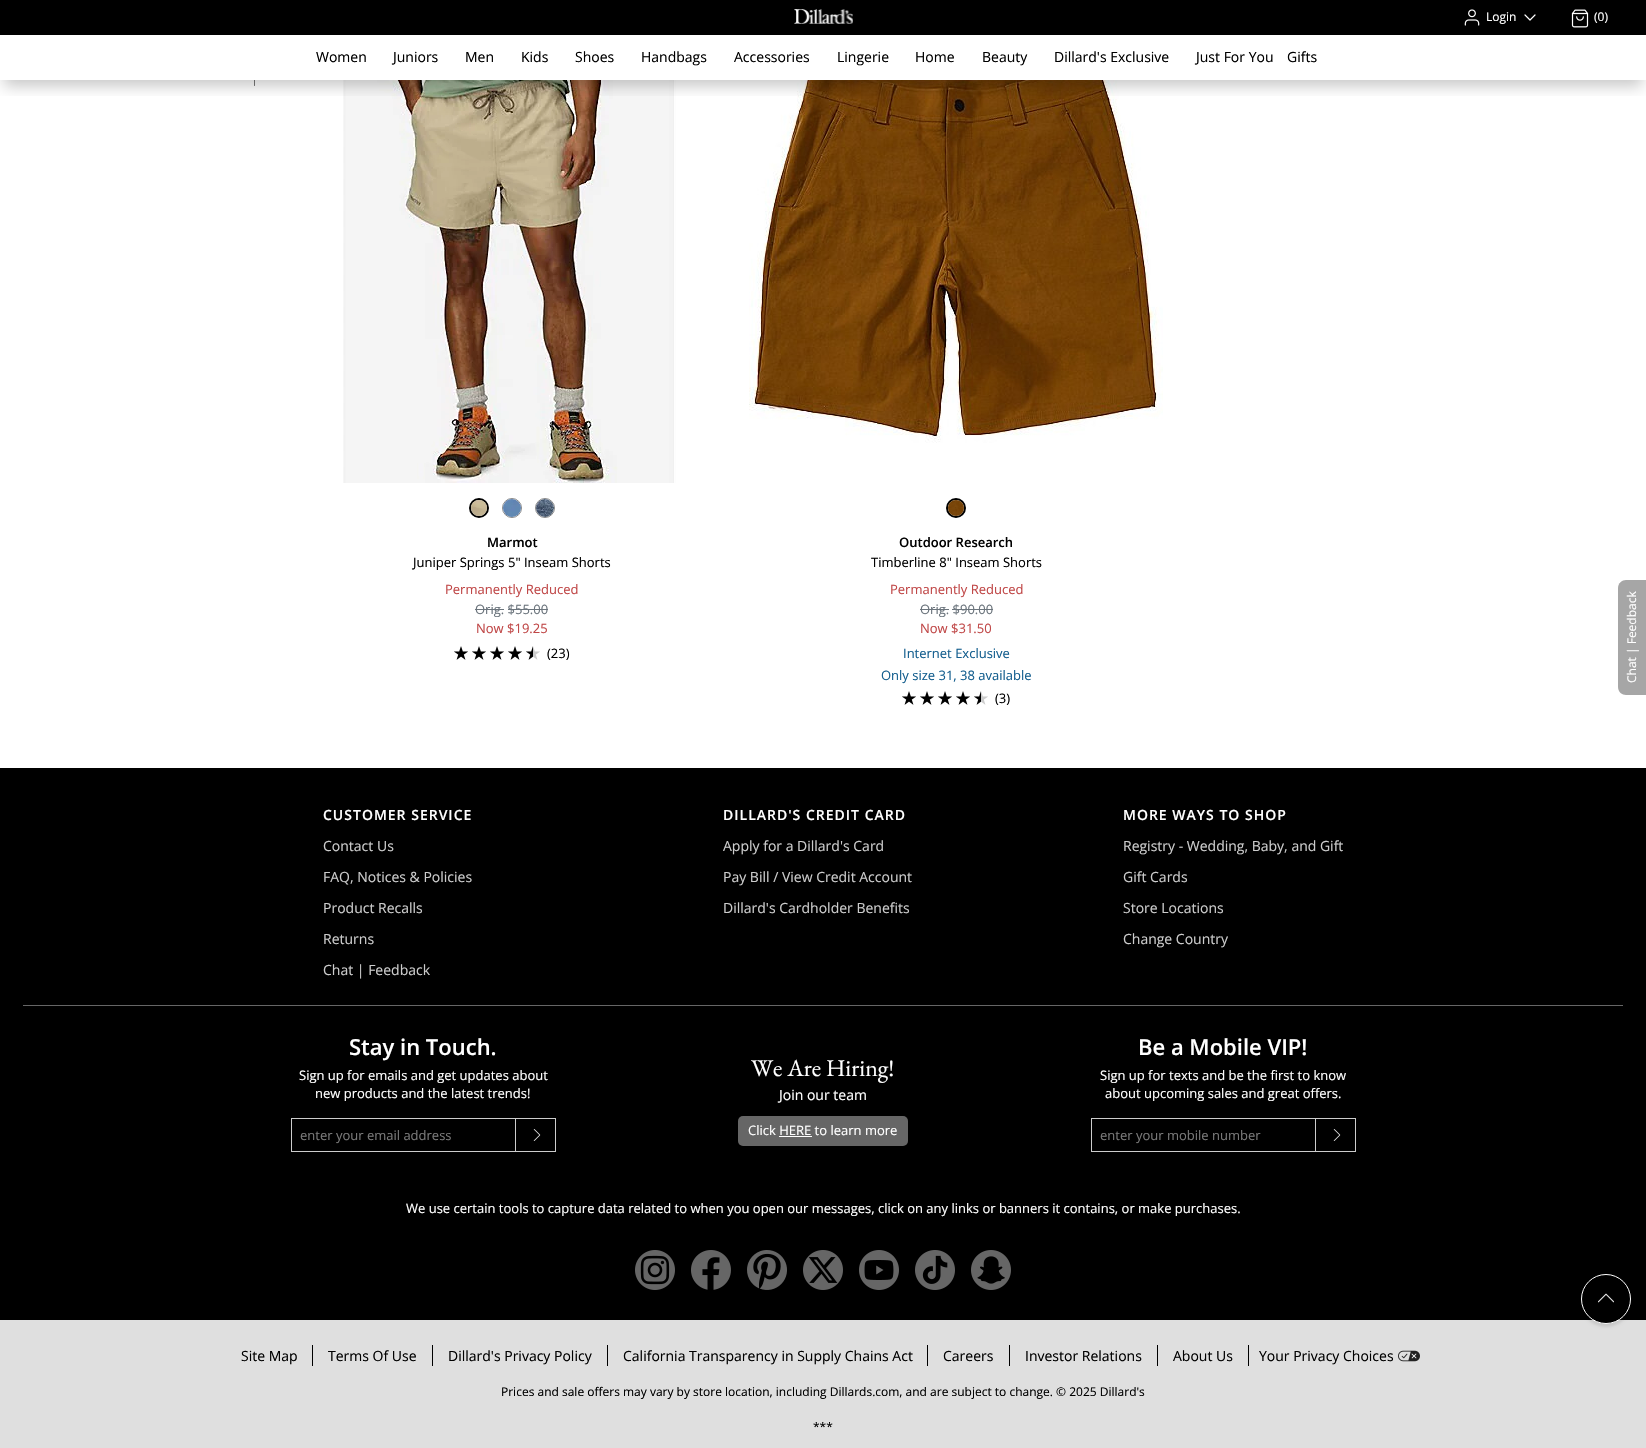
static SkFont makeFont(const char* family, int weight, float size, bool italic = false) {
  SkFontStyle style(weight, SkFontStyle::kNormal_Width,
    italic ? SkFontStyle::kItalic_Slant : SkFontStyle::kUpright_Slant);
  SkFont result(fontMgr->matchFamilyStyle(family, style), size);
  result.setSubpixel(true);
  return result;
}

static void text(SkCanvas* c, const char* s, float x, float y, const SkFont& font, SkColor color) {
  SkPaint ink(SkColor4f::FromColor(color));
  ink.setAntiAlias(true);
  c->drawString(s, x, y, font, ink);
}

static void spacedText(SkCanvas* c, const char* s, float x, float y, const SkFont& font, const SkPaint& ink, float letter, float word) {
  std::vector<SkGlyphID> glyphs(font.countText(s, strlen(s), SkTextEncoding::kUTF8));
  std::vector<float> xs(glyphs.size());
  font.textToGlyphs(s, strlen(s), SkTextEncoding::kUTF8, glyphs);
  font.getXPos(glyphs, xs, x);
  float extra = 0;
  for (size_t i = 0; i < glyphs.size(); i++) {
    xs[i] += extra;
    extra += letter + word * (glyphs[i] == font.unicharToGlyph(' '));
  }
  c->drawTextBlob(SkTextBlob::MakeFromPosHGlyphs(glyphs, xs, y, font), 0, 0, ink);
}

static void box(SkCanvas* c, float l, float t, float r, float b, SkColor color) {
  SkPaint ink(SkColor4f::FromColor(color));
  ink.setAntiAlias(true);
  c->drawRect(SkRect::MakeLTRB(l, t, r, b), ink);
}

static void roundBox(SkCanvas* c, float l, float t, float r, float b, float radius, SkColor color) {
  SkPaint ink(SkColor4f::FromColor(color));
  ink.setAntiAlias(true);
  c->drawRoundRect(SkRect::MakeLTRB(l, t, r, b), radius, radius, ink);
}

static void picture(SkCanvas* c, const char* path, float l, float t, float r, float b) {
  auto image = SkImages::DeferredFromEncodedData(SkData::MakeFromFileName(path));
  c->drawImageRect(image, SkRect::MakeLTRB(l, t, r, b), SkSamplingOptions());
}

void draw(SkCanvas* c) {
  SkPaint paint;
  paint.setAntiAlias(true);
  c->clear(0xffffffff);
  picture(c, "img_04.png", 254, 80, 255, 86);
  picture(c, "img_05.png", 343, 80, 677, 483);
  picture(c, "img_11.png", 749, 80, 1163, 443);
  c->save();
  c->clipRect(SkRect::MakeLTRB(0, 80, 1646, 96));
  paint.setColor(0x38000000);
  paint.setMaskFilter(SkMaskFilter::MakeBlur(kNormal_SkBlurStyle, 7.5f));
  c->drawRect(SkRect::MakeLTRB(4, 49, 1642, 86), paint);
  paint.setMaskFilter(nullptr);
  c->restore();
  box(c, 0, 0, 1646, 35, 0xff000000);
  picture(c, "img_01.png", 794, 9, 853, 24);
  picture(c, "img_02.png", 1464, 9, 1480, 26);
  SkFont face1 = makeFont("Open Sans", 400, 12);
  text(c, "Login", 1486, 21, face1, 0xffffffff);
  paint.setStyle(SkPaint::kStroke_Style);
  paint.setStrokeWidth(1.2f);
  paint.setStrokeCap(SkPaint::kRound_Cap);
  paint.setStrokeJoin(SkPaint::kRound_Join);
  paint.setColor(0xffffffff);
  c->drawPath(SkPathBuilder().moveTo(1525, 15).lineTo(1530, 20).lineTo(1535, 15).detach(), paint);
  picture(c, "img_03.png", 1571, 9, 1589, 28);
  text(c, "(0)", 1594, 21, face1, 0xffffffff);
  SkFont face2 = makeFont("Open Sans", 400, 14);
  text(c, "Women", 316, 62, face2, 0xff000000);
  text(c, "Juniors", 393, 62, face2, 0xff000000);
  text(c, "Men", 465, 62, face2, 0xff000000);
  text(c, "Kids", 521, 62, face2, 0xff000000);
  text(c, "Shoes", 575, 62, face2, 0xff000000);
  text(c, "Handbags", 641, 62, face2, 0xff000000);
  text(c, "Accessories", 734, 62, face2, 0xff000000);
  text(c, "Lingerie", 837, 62, face2, 0xff000000);
  text(c, "Home", 915, 62, face2, 0xff000000);
  text(c, "Beauty", 982, 62, face2, 0xff000000);
  text(c, "Dillard's Exclusive", 1054, 62, face2, 0xff000000);
  text(c, "Just For You", 1196, 62, face2, 0xff000000);
  text(c, "Gifts", 1287, 62, face2, 0xff000000);
  paint.setStyle(SkPaint::kFill_Style);
  paint.setColor(0xfff9f9f9);
  c->drawCircle(479, 508, 9, paint);
  paint.setStyle(SkPaint::kStroke_Style);
  paint.setStrokeWidth(2);
  paint.setStrokeCap(SkPaint::kButt_Cap);
  paint.setStrokeJoin(SkPaint::kMiter_Join);
  paint.setColor(0xff000000);
  c->drawCircle(479, 508, 9, paint);
  picture(c, "img_06.png", 471, 500, 487, 516);
  paint.setStyle(SkPaint::kFill_Style);
  paint.setColor(0xfff9f9f9);
  c->drawCircle(512, 508, 9.5f, paint);
  paint.setStyle(SkPaint::kStroke_Style);
  paint.setStrokeWidth(1);
  paint.setColor(0xff888888);
  c->drawCircle(512, 508, 9.5f, paint);
  picture(c, "img_07.png", 503, 499, 521, 517);
  paint.setStyle(SkPaint::kFill_Style);
  paint.setColor(0xfff9f9f9);
  c->drawCircle(545, 508, 9.5f, paint);
  paint.setStyle(SkPaint::kStroke_Style);
  paint.setColor(0xff888888);
  c->drawCircle(545, 508, 9.5f, paint);
  picture(c, "img_08.png", 536, 499, 554, 517);
  SkFont face3 = makeFont("Open Sans", 600, 13);
  text(c, "Marmot", 487, 547, face3, 0xff000000);
  SkFont face4 = makeFont("Open Sans", 400, 13);
  text(c, "Juniper Springs 5\" Inseam Shorts", 413, 567, face4, 0xff000000);
  text(c, "Permanently Reduced", 445, 594, face4, 0xffc04747);
  text(c, "Orig. $55.00", 475, 614, face4, 0xff6c757d);
  box(c, 475, 609, 504, 610, 0xff6c757d);
  box(c, 508, 609, 548, 610, 0xff6c757d);
  text(c, "Now $19.25", 476, 633, face4, 0xffc04747);
  picture(c, "img_09.png", 454, 646, 468, 660);
  picture(c, "img_09.png", 472, 646, 486, 660);
  picture(c, "img_09.png", 490, 646, 504, 660);
  picture(c, "img_09.png", 508, 646, 522, 660);
  picture(c, "img_10.png", 526, 646, 540, 660);
  text(c, "(23)", 547, 658, face4, 0xff000000);
  paint.setStyle(SkPaint::kFill_Style);
  paint.setColor(0xfff9f9f9);
  c->drawCircle(956, 508, 9, paint);
  paint.setStyle(SkPaint::kStroke_Style);
  paint.setStrokeWidth(2);
  paint.setColor(0xff000000);
  c->drawCircle(956, 508, 9, paint);
  picture(c, "img_12.png", 948, 500, 964, 516);
  text(c, "Outdoor Research", 899, 547, face3, 0xff000000);
  text(c, "Timberline 8\" Inseam Shorts", 871, 567, face4, 0xff000000);
  text(c, "Permanently Reduced", 890, 594, face4, 0xffc04747);
  text(c, "Orig. $90.00", 920, 614, face4, 0xff6c757d);
  box(c, 920, 609, 949, 610, 0xff6c757d);
  box(c, 952, 609, 993, 610, 0xff6c757d);
  text(c, "Now $31.50", 920, 633, face4, 0xffc04747);
  text(c, "Internet Exclusive", 903, 658, face4, 0xff155f8f);
  text(c, "Only size 31, 38 available", 881, 680, face4, 0xff155f8f);
  picture(c, "img_09.png", 902, 691, 916, 705);
  picture(c, "img_09.png", 920, 691, 934, 705);
  picture(c, "img_09.png", 938, 691, 952, 705);
  picture(c, "img_09.png", 956, 691, 970, 705);
  picture(c, "img_10.png", 974, 691, 988, 705);
  text(c, "(3)", 995, 703, face4, 0xff000000);
  box(c, 0, 768, 1646, 1320, 0xff000000);
  box(c, 0, 1320, 1646, 1448, 0xffdfdfdf);
  paint.setStyle(SkPaint::kFill_Style);
  paint.setColor(0x1a000000);
  paint.setMaskFilter(SkMaskFilter::MakeBlur(kNormal_SkBlurStyle, 1.5f));
  c->drawRoundRect(SkRect::MakeLTRB(1581, 1277, 1631, 1327), 25, 25, paint);
  paint.setMaskFilter(nullptr);
  paint.setColor(0xff000000);
  c->drawCircle(1606, 1299, 24.5f, paint);
  paint.setStyle(SkPaint::kStroke_Style);
  paint.setStrokeWidth(1);
  paint.setColor(0xffffffff);
  c->drawCircle(1606, 1299, 24.5f, paint);
  picture(c, "img_13.png", 1598, 1293, 1614, 1303);
  SkFont face5 = makeFont("Open Sans", 600, 14);
  paint.setStyle(SkPaint::kFill_Style);
  spacedText(c, "CUSTOMER SERVICE", 323, 820, face5, paint, 1, 0);
  text(c, "Contact Us", 323, 851, face2, 0xffcccccc);
  text(c, "FAQ, Notices & Policies", 323, 882, face2, 0xffcccccc);
  text(c, "Product Recalls", 323, 913, face2, 0xffcccccc);
  text(c, "Returns", 323, 944, face2, 0xffcccccc);
  text(c, "Chat | Feedback", 323, 975, face2, 0xffcccccc);
  spacedText(c, "DILLARD'S CREDIT CARD", 723, 820, face5, paint, 1, 0);
  text(c, "Apply for a Dillard's Card", 723, 851, face2, 0xffcccccc);
  text(c, "Pay Bill / View Credit Account", 723, 882, face2, 0xffcccccc);
  text(c, "Dillard's Cardholder Benefits", 723, 913, face2, 0xffcccccc);
  spacedText(c, "MORE WAYS TO SHOP", 1123, 820, face5, paint, 1, 0);
  text(c, "Registry - Wedding, Baby, and Gift", 1123, 851, face2, 0xffcccccc);
  text(c, "Gift Cards", 1123, 882, face2, 0xffcccccc);
  text(c, "Store Locations", 1123, 913, face2, 0xffcccccc);
  text(c, "Change Country", 1123, 944, face2, 0xffcccccc);
  box(c, 23, 1005, 1623, 1006, 0xff666666);
  SkFont face6 = makeFont("Open Sans", 600, 22);
  text(c, "Stay in Touch.", 349, 1055, face6, 0xffffffff);
  text(c, "Sign up for emails and get updates about", 299, 1080, face4, 0xffffffff);
  text(c, "new products and the latest trends!", 315, 1098, face4, 0xffffffff);
  paint.setStyle(SkPaint::kStroke_Style);
  paint.setColor(0xffcccccc);
  c->drawRect(SkRect::MakeLTRB(291.5f, 1118.5f, 515.5f, 1151.5f), paint);
  text(c, "enter your email address", 300, 1140, face4, 0xff797979);
  box(c, 516, 1118, 556, 1119, 0xffcccccc);
  box(c, 555, 1118, 556, 1152, 0xffcccccc);
  box(c, 516, 1151, 556, 1152, 0xffcccccc);
  picture(c, "img_14.png", 533, 1129, 541, 1141);
  SkFont face7 = makeFont("EB Garamond", 400, 24);
  text(c, "We Are Hiring!", 751, 1076, face7, 0xffffffff);
  text(c, "Join our team", 779, 1100, face2, 0xffffffff);
  roundBox(c, 738, 1116, 908, 1146, 5, 0xff666666);
  text(c, "Click HERE to learn more", 748, 1135, face4, 0xffffffff);
  box(c, 779, 1136, 812, 1137, 0xffffffff);
  text(c, "Be a Mobile VIP!", 1138, 1055, face6, 0xffffffff);
  text(c, "Sign up for texts and be the first to know", 1100, 1080, face4, 0xffffffff);
  text(c, "about upcoming sales and great offers.", 1105, 1098, face4, 0xffffffff);
  c->drawRect(SkRect::MakeLTRB(1091.5f, 1118.5f, 1315.5f, 1151.5f), paint);
  text(c, "enter your mobile number", 1100, 1140, face4, 0xff797979);
  box(c, 1316, 1118, 1356, 1119, 0xffcccccc);
  box(c, 1355, 1118, 1356, 1152, 0xffcccccc);
  box(c, 1316, 1151, 1356, 1152, 0xffcccccc);
  picture(c, "img_14.png", 1333, 1129, 1341, 1141);
  text(c, "We use certain tools to capture data related to when you open our messages, click on any links or banners it contains, or make purchases.", 406, 1213, face4, 0xffffffff);
  picture(c, "img_15.png", 635, 1250, 675, 1290);
  picture(c, "img_16.png", 691, 1250, 731, 1290);
  picture(c, "img_17.png", 747, 1250, 787, 1290);
  picture(c, "img_18.png", 803, 1250, 843, 1290);
  picture(c, "img_19.png", 859, 1250, 899, 1290);
  picture(c, "img_20.png", 915, 1250, 955, 1290);
  picture(c, "img_21.png", 971, 1250, 1011, 1290);
  box(c, 312, 1345, 313, 1366, 0xff000000);
  text(c, "Site Map", 241, 1361, face2, 0xff000000);
  box(c, 432, 1345, 433, 1366, 0xff000000);
  text(c, "Terms Of Use", 328, 1361, face2, 0xff000000);
  box(c, 607, 1345, 608, 1366, 0xff000000);
  text(c, "Dillard's Privacy Policy", 448, 1361, face2, 0xff000000);
  box(c, 927, 1345, 928, 1366, 0xff000000);
  text(c, "California Transparency in Supply Chains Act", 623, 1361, face2, 0xff000000);
  box(c, 1009, 1345, 1010, 1366, 0xff000000);
  text(c, "Careers", 943, 1361, face2, 0xff000000);
  box(c, 1157, 1345, 1158, 1366, 0xff000000);
  text(c, "Investor Relations", 1025, 1361, face2, 0xff000000);
  box(c, 1248, 1345, 1249, 1366, 0xff000000);
  text(c, "About Us", 1173, 1361, face2, 0xff000000);
  text(c, "Your Privacy Choices", 1259, 1361, face2, 0xff000000);
  picture(c, "img_22.png", 1398, 1350, 1420, 1362);
  text(c, "Prices and sale offers may vary by store location, including Dillards.com, and are subject to change. © 2025 Dillard's", 501, 1396, face1, 0xff000000);
  text(c, "***", 813, 1431, face1, 0xff000000);
  paint.setStyle(SkPaint::kFill_Style);
  paint.setColor(0xffa6a6a6);
  c->drawPath(SkPathBuilder().moveTo(1618, 687).lineTo(1618, 588).cubicTo(1618, 583, 1622, 580, 1626, 580).lineTo(1646, 580).lineTo(1646, 695).lineTo(1626, 695).cubicTo(1622, 695, 1618, 692, 1618, 687).close().detach(), paint);
  c->save();
  c->rotate(-90, 1636, 683);
  text(c, "Chat | Feedback", 1636, 683, face1, 0xffffffff);
  c->restore();
}
